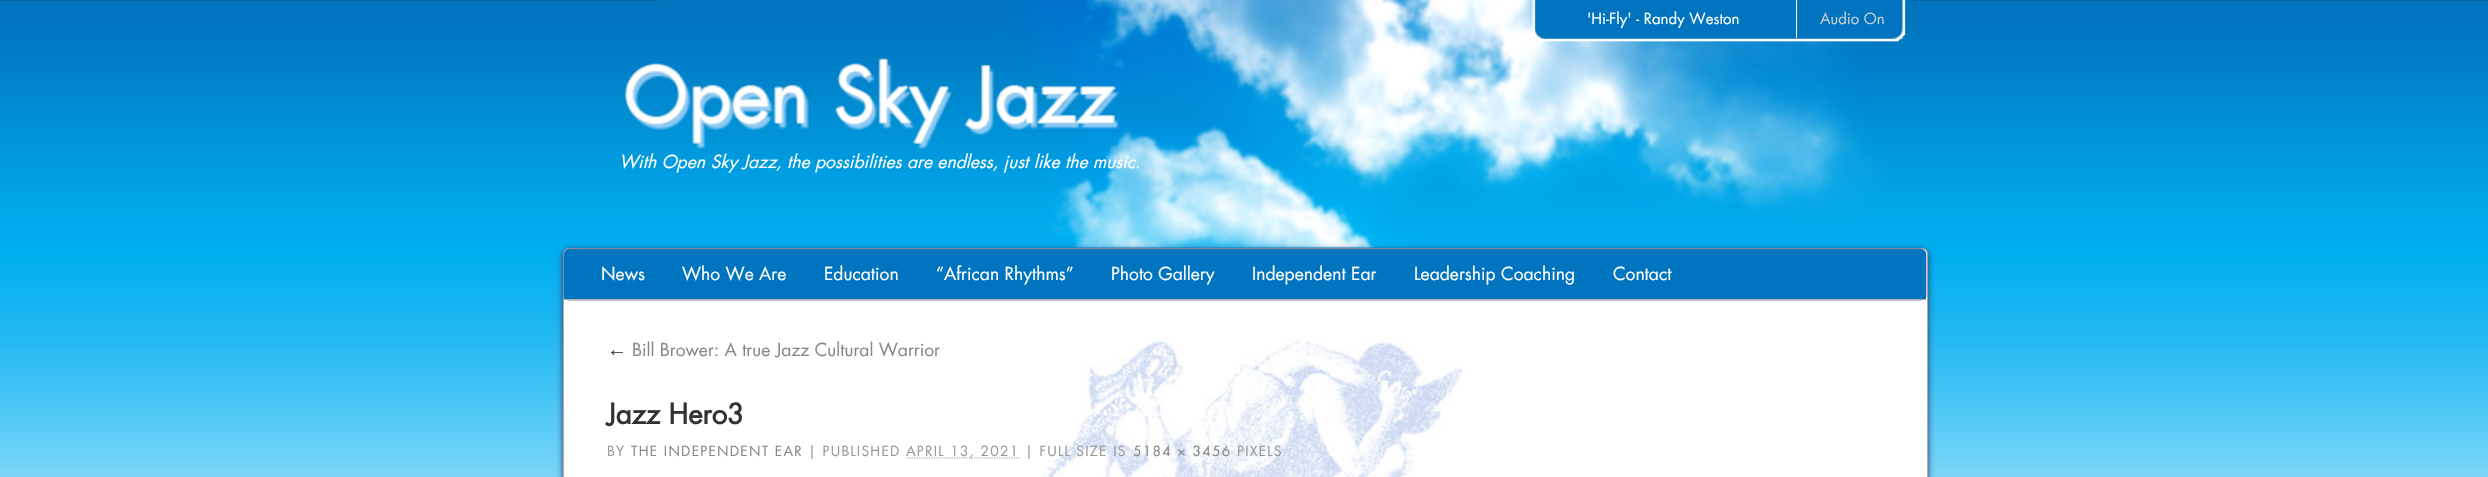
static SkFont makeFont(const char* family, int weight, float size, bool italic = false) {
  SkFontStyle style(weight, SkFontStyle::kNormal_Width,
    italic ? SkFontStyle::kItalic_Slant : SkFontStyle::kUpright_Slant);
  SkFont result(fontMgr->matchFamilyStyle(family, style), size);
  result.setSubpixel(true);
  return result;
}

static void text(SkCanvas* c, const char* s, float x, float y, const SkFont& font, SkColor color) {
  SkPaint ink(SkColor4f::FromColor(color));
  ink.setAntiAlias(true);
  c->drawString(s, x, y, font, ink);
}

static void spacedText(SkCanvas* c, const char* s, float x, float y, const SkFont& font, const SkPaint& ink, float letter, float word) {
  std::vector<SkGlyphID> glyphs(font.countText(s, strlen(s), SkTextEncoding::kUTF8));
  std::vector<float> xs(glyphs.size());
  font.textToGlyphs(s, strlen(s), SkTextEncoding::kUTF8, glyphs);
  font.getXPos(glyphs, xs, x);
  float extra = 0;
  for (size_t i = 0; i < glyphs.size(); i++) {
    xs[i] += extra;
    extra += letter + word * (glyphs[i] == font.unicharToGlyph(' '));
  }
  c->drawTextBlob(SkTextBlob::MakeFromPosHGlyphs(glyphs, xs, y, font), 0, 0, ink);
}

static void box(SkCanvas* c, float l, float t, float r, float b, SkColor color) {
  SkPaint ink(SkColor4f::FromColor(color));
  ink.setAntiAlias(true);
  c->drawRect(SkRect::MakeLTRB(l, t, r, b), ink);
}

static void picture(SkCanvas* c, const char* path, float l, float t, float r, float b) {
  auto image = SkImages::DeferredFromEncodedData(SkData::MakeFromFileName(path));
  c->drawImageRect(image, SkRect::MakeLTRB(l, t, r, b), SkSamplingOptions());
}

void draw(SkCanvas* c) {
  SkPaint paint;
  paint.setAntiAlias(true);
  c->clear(0xffffffff);
  picture(c, "img_01.png", 0, 0, 2488, 477);
  picture(c, "img_02.png", 657, 0, 1908, 248);
  picture(c, "img_03.png", 1532, 0, 1906, 42);
  SkFont face1 = makeFont("Futura", 400, 15);
  text(c, "'Hi-Fly' - Randy Weston", 1587, 24, face1, 0xffffffff);
  box(c, 1796, 0, 1797, 38, 0xffffffff);
  text(c, "Audio On", 1820, 24, face1, 0xffcccccc);
  picture(c, "img_04.png", 624, 58, 1120, 149);
  SkFont face2 = makeFont("Futura", 400, 17.5f, true);
  text(c, "With Open Sky Jazz, the possibilities are endless, just like the music.", 619, 168, face2, 0xffffffff);
  paint.setColor(0xff333366);
  paint.setMaskFilter(SkMaskFilter::MakeBlur(kNormal_SkBlurStyle, 3));
  c->drawRoundRect(SkRect::MakeLTRB(563, 250, 1928, 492), 6, 6, paint);
  paint.setMaskFilter(nullptr);
  paint.setColor(0xffffffff);
  c->drawRoundRect(SkRect::MakeLTRB(563.5f, 248.5f, 1927.5f, 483.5f), 5.5f, 5.5f, paint);
  paint.setStyle(SkPaint::kStroke_Style);
  paint.setStrokeWidth(1);
  paint.setColor(0xffaaaaaa);
  c->drawRoundRect(SkRect::MakeLTRB(563.5f, 248.5f, 1927.5f, 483.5f), 5.5f, 5.5f, paint);
  paint.setStyle(SkPaint::kFill_Style);
  paint.setColor(0xff333366);
  paint.setMaskFilter(SkMaskFilter::MakeBlur(kNormal_SkBlurStyle, 1));
  c->drawRoundRect(SkRect::MakeLTRB(564, 249, 1926, 300), 6, 6, paint);
  paint.setMaskFilter(nullptr);
  paint.setColor(0xff0074be);
  c->drawPath(SkPathBuilder().moveTo(570, 249).lineTo(1920, 249).cubicTo(1923.5f, 249, 1926, 251.5f, 1926, 255).lineTo(1926, 300).lineTo(564, 300).lineTo(564, 255).cubicTo(564, 251.5f, 566.5f, 249, 570, 249).close().detach(), paint);
  box(c, 564, 299, 1926, 300, 0xffaaaaaa);
  SkFont face3 = makeFont("Futura", 400, 17.5f);
  text(c, "News", 601, 280, face3, 0xffffffff);
  text(c, "Who We Are", 682, 280, face3, 0xffffffff);
  text(c, "Education", 824, 280, face3, 0xffffffff);
  text(c, "“African Rhythms”", 936, 280, face3, 0xffffffff);
  text(c, "Photo Gallery", 1111, 280, face3, 0xffffffff);
  text(c, "Independent Ear", 1252, 280, face3, 0xffffffff);
  text(c, "Leadership Coaching", 1414, 280, face3, 0xffffffff);
  text(c, "Contact", 1613, 280, face3, 0xffffffff);
  picture(c, "img_05.png", 1042, 336, 1464, 477);
  SkFont face4 = makeFont("Liberation Sans", 400, 20, true);
  text(c, "←", 607, 356, face4, 0xff333333);
  text(c, "Bill Brower: A true Jazz Cultural Warrior", 632, 356, face3, 0xff888888);
  SkFont face5 = makeFont("Futura", 700, 27.5f);
  text(c, "Jazz Hero3", 607, 424, face5, 0xff333333);
  SkFont face6 = makeFont("Futura", 400, 13.75f);
  paint.setColor(0xff999999);
  spacedText(c, "BY", 607, 456, face6, paint, 1.25f, 0);
  paint.setColor(0xff888888);
  spacedText(c, "THE INDEPENDENT EAR", 631, 456, face6, paint, 1.25f, 0);
  paint.setColor(0xff999999);
  spacedText(c, "| PUBLISHED", 808, 456, face6, paint, 1.25f, 0);
  paint.setStyle(SkPaint::kStroke_Style);
  paint.setStrokeWidth(1.2f);
  paint.setPathEffect(SkDashPathEffect::Make({{1.25f, 1.25f}}, 0));
  c->drawPath(SkPathBuilder().moveTo(906.5f, 458).lineTo(1020, 458).detach(), paint);
  paint.setPathEffect(nullptr);
  paint.setStyle(SkPaint::kFill_Style);
  spacedText(c, "APRIL 13, 2021 | FULL SIZE IS", 906, 456, face6, paint, 1.25f, 0);
  paint.setColor(0xff888888);
  spacedText(c, "5184 × 3456", 1133, 456, face6, paint, 1.25f, 0);
  paint.setColor(0xff999999);
  spacedText(c, "PIXELS", 1237, 456, face6, paint, 1.25f, 0);
}
